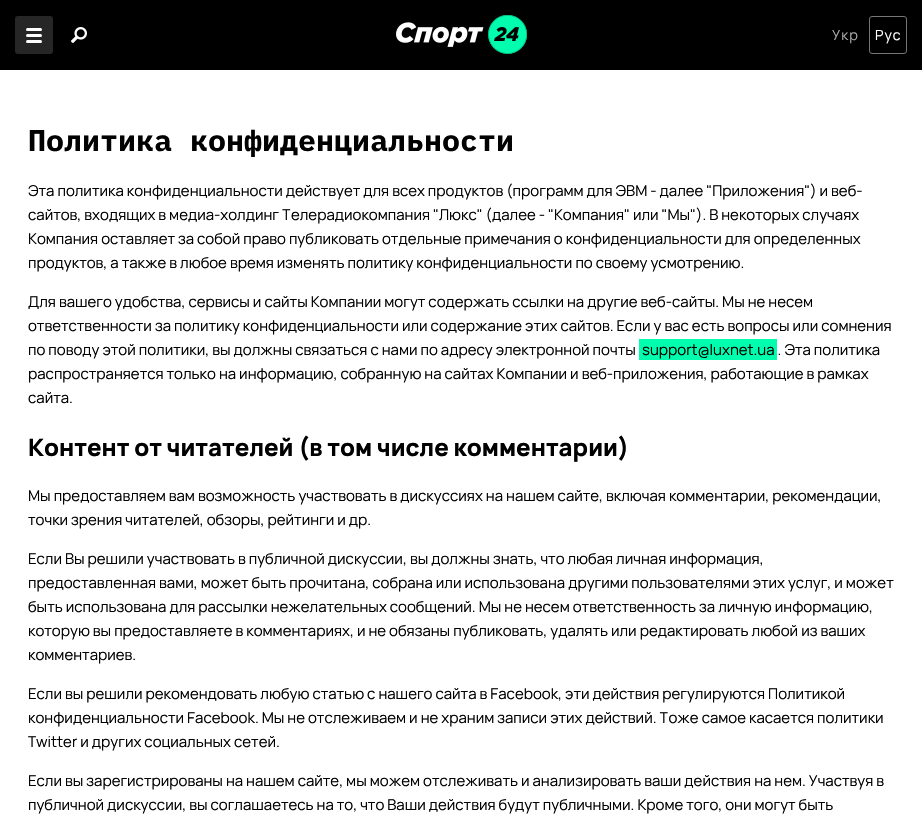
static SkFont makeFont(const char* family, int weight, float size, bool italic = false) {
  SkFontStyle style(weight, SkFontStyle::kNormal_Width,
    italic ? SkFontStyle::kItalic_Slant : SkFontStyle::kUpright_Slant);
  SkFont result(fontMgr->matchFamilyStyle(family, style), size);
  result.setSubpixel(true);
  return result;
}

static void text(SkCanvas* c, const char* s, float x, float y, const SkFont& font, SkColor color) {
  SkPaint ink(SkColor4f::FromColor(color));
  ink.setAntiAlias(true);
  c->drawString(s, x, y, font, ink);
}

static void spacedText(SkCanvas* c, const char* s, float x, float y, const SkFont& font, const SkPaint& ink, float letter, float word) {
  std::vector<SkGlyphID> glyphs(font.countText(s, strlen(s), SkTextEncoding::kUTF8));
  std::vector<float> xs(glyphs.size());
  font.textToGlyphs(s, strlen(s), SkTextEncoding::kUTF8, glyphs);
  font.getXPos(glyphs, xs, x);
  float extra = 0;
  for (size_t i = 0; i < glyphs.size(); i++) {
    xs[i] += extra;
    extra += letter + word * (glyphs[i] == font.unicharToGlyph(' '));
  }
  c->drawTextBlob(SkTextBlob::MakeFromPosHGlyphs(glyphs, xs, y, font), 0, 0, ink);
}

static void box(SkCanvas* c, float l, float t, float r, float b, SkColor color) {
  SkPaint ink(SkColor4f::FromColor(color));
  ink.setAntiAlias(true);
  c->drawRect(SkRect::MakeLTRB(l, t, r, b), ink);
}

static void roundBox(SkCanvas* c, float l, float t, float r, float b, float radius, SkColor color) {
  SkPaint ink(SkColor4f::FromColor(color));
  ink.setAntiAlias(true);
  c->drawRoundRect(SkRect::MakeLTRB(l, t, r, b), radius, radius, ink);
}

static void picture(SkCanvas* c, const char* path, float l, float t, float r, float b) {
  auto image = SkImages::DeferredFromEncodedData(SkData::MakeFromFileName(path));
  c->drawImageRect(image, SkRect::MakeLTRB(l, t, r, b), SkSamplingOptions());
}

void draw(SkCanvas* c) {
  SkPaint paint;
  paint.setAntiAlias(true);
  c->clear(0xff000000);
  roundBox(c, 15, 16, 53, 54, 3, 0xff262626);
  roundBox(c, 26, 28, 42, 31, 1.5f, 0xffffffff);
  roundBox(c, 26, 34, 42, 37, 1.5f, 0xffffffff);
  roundBox(c, 26, 40, 42, 43, 1.5f, 0xffffffff);
  picture(c, "img_01.png", 71, 27, 87, 43);
  picture(c, "img_02.png", 396, 15, 527, 54);
  SkFont face1 = makeFont("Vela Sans", 400, 14);
  paint.setColor(0xffaaaaaa);
  spacedText(c, "Укр", 832, 40, face1, paint, 1, 0);
  paint.setStyle(SkPaint::kStroke_Style);
  paint.setStrokeWidth(1);
  paint.setColor(0xff757575);
  c->drawRoundRect(SkRect::MakeLTRB(869.5f, 16.5f, 906.5f, 53.5f), 2.5f, 2.5f, paint);
  paint.setStyle(SkPaint::kFill_Style);
  paint.setColor(0xffffffff);
  spacedText(c, "Рус", 875, 40, face1, paint, 1, 0);
  box(c, 0, 70, 922, 816, 0xffffffff);
  SkFont face2 = makeFont("IBM Plex Mono", 700, 30);
  text(c, "Политика конфиденциальности", 28, 151, face2, 0xff000000);
  SkFont face3 = makeFont("Vela Sans", 400, 15);
  text(c, "Эта политика конфиденциальности действует для всех продуктов (программ для ЭВМ - далее \"Приложения\") и веб-", 28, 196, face3, 0xff000000);
  text(c, "сайтов, входящих в медиа-холдинг Телерадиокомпания \"Люкс\" (далее - \"Компания\" или \"Мы\"). В некоторых случаях", 28, 220, face3, 0xff000000);
  text(c, "Компания оставляет за собой право публиковать отдельные примечания о конфиденциальности для определенных", 28, 244, face3, 0xff000000);
  text(c, "продуктов, а также в любое время изменять политику конфиденциальности по своему усмотрению.", 28, 268, face3, 0xff000000);
  text(c, "Для вашего удобства, сервисы и сайты Компании могут содержать ссылки на другие веб-сайты. Мы не несем", 28, 307, face3, 0xff000000);
  text(c, "ответственности за политику конфиденциальности или содержание этих сайтов. Если у вас есть вопросы или сомнения", 28, 331, face3, 0xff000000);
  text(c, "по поводу этой политики, вы должны связаться с нами по адресу электронной почты", 28, 355, face3, 0xff000000);
  box(c, 639, 339, 777, 360, 0xff00feae);
  text(c, "support@luxnet.ua . Эта политика", 642, 355, face3, 0xff000000);
  text(c, "распространяется только на информацию, собранную на сайтах Компании и веб-приложения, работающие в рамках", 28, 379, face3, 0xff000000);
  text(c, "сайта.", 28, 403, face3, 0xff000000);
  SkFont face4 = makeFont("Vela Sans", 800, 24);
  text(c, "Контент от читателей (в том числе комментарии)", 28, 456, face4, 0xff000000);
  text(c, "Мы предоставляем вам возможность участвовать в дискуссиях на нашем сайте, включая комментарии, рекомендации,", 28, 501, face3, 0xff000000);
  text(c, "точки зрения читателей, обзоры, рейтинги и др.", 28, 525, face3, 0xff000000);
  text(c, "Если Вы решили участвовать в публичной дискуссии, вы должны знать, что любая личная информация,", 28, 564, face3, 0xff000000);
  text(c, "предоставленная вами, может быть прочитана, собрана или использована другими пользователями этих услуг, и может", 28, 588, face3, 0xff000000);
  text(c, "быть использована для рассылки нежелательных сообщений. Мы не несем ответственность за личную информацию,", 28, 612, face3, 0xff000000);
  text(c, "которую вы предоставляете в комментариях, и не обязаны публиковать, удалять или редактировать любой из ваших", 28, 636, face3, 0xff000000);
  text(c, "комментариев.", 28, 660, face3, 0xff000000);
  text(c, "Если вы решили рекомендовать любую статью с нашего сайта в Facebook, эти действия регулируются Политикой", 28, 699, face3, 0xff000000);
  text(c, "конфиденциальности Facebook. Мы не отслеживаем и не храним записи этих действий. Тоже самое касается политики", 28, 723, face3, 0xff000000);
  text(c, "Twitter и других социальных сетей.", 28, 747, face3, 0xff000000);
  text(c, "Если вы зарегистрированы на нашем сайте, мы можем отслеживать и анализировать ваши действия на нем. Участвуя в", 28, 786, face3, 0xff000000);
  text(c, "публичной дискуссии, вы соглашаетесь на то, что Ваши действия будут публичными. Кроме того, они могут быть", 28, 810, face3, 0xff000000);
}
